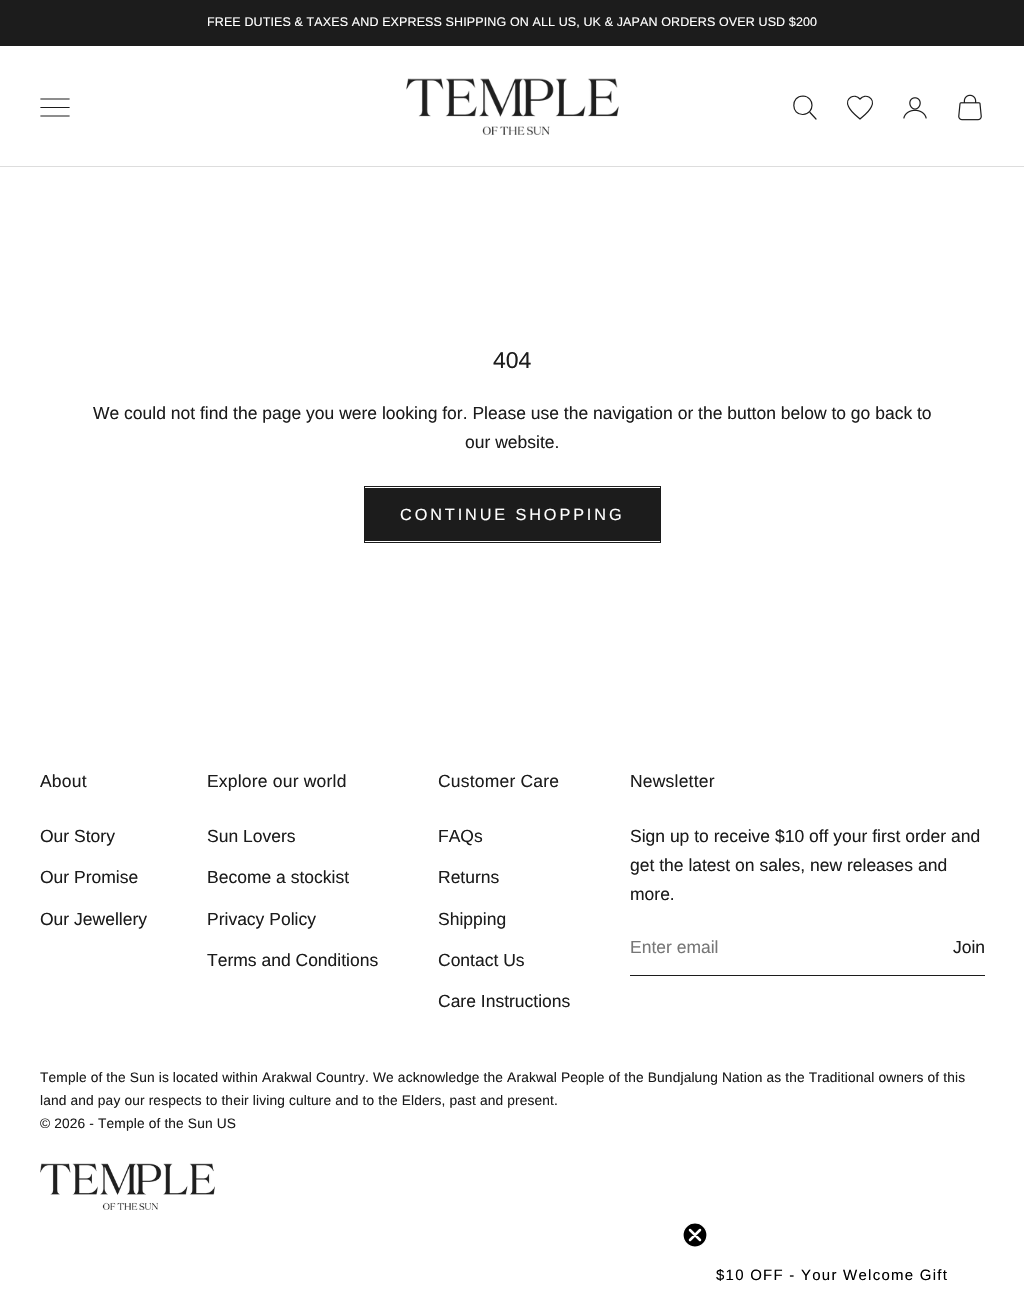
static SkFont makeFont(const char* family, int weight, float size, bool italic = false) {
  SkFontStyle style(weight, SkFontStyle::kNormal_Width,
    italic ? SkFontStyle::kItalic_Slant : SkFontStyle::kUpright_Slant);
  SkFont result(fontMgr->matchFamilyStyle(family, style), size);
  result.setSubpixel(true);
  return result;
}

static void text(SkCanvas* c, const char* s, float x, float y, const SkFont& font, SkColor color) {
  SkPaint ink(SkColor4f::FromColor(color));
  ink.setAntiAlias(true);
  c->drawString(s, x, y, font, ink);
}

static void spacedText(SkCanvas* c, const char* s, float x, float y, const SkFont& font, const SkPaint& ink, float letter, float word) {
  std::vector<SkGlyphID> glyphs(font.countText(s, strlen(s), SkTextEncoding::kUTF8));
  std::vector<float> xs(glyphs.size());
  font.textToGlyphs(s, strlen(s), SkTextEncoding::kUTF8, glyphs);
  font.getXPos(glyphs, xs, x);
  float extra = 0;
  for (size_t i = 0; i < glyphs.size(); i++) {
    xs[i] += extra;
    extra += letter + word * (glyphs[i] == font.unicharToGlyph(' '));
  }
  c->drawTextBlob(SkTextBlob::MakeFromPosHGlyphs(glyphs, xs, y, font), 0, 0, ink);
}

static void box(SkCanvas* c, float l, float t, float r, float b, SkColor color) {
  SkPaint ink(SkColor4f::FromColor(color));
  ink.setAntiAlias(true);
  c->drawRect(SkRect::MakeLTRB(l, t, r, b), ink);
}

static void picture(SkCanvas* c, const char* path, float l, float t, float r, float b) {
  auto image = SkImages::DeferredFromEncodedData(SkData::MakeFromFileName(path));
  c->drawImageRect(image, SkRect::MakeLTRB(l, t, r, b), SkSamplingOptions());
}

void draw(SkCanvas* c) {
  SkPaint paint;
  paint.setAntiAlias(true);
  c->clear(0xffffffff);
  box(c, 0, 0, 1024, 46, 0xff1c1c1c);
  SkFont face1 = makeFont("Liberation Sans", 400, 12.5f);
  paint.setColor(0xffffffff);
  spacedText(c, "FREE DUTIES & TAXES AND EXPRESS SHIPPING ON ALL US, UK & JAPAN ORDERS OVER USD $200", 207, 26, face1, paint, 0.12f, 0);
  box(c, 0, 166, 1024, 167, 0xffdddddd);
  paint.setStyle(SkPaint::kStroke_Style);
  paint.setStrokeWidth(1.2f);
  paint.setStrokeCap(SkPaint::kSquare_Cap);
  paint.setColor(0xff1c1c1c);
  c->drawPath(SkPathBuilder().moveTo(41, 116).lineTo(69, 116).moveTo(41, 107.5f).lineTo(69, 107.5f).moveTo(41, 99).lineTo(69, 99).detach(), paint);
  picture(c, "img_01.png", 406, 78, 619, 135);
  paint.setStrokeCap(SkPaint::kButt_Cap);
  c->drawPath(SkPathBuilder().moveTo(803, 96).cubicTo(790.5f, 96, 791, 115, 803, 114.5f).cubicTo(815, 114, 815, 96.5f, 803, 96).close().detach(), paint);
  paint.setStrokeCap(SkPaint::kRound_Cap);
  c->drawPath(SkPathBuilder().moveTo(810, 112.5f).lineTo(816, 119).detach(), paint);
  paint.setStrokeCap(SkPaint::kButt_Cap);
  c->drawPath(SkPathBuilder().moveTo(860, 119).cubicTo(856, 115.5f, 850.5f, 111.5f, 848.5f, 106.5f).cubicTo(844.5f, 98.5f, 854.5f, 92.5f, 860, 99).cubicTo(865.5f, 92.5f, 875.5f, 98.5f, 871.5f, 106.5f).cubicTo(869.5f, 111.5f, 864, 115.5f, 860, 119).close().detach(), paint);
  picture(c, "img_02.png", 903, 97, 927, 119);
  picture(c, "img_03.png", 958, 94, 982, 121);
  SkFont face2 = makeFont("Liberation Sans", 400, 23);
  text(c, "404", 493, 368, face2, 0xff1c1c1c);
  SkFont face3 = makeFont("Liberation Sans", 400, 17.5f);
  text(c, "We could not find the page you were looking for. Please use the navigation or the button below to go back to", 93, 419, face3, 0xff1c1c1c);
  text(c, "our website.", 465, 448, face3, 0xff1c1c1c);
  box(c, 365, 488, 660, 541, 0xff1c1c1c);
  paint.setStrokeWidth(1);
  c->drawRect(SkRect::MakeLTRB(364.5f, 486.5f, 660.5f, 542.5f), paint);
  SkFont face4 = makeFont("Liberation Sans", 400, 16.25f);
  paint.setStyle(SkPaint::kFill_Style);
  paint.setColor(0xffffffff);
  spacedText(c, "CONTINUE SHOPPING", 400, 520, face4, paint, 2.9f, 0);
  paint.setColor(0xff1c1c1c);
  spacedText(c, "About", 40, 787, face3, paint, 0.2f, 0);
  text(c, "Our Story", 40, 842, face3, 0xff1c1c1c);
  text(c, "Our Promise", 40, 883, face3, 0xff1c1c1c);
  text(c, "Our Jewellery", 40, 925, face3, 0xff1c1c1c);
  spacedText(c, "Explore our world", 207, 787, face3, paint, 0.2f, 0);
  text(c, "Sun Lovers", 207, 842, face3, 0xff1c1c1c);
  text(c, "Become a stockist", 207, 883, face3, 0xff1c1c1c);
  text(c, "Privacy Policy", 207, 925, face3, 0xff1c1c1c);
  text(c, "Terms and Conditions", 207, 966, face3, 0xff1c1c1c);
  spacedText(c, "Customer Care", 438, 787, face3, paint, 0.2f, 0);
  text(c, "FAQs", 438, 842, face3, 0xff1c1c1c);
  text(c, "Returns", 438, 883, face3, 0xff1c1c1c);
  text(c, "Shipping", 438, 925, face3, 0xff1c1c1c);
  text(c, "Contact Us", 438, 966, face3, 0xff1c1c1c);
  text(c, "Care Instructions", 438, 1007, face3, 0xff1c1c1c);
  spacedText(c, "Newsletter", 630, 787, face3, paint, 0.2f, 0);
  text(c, "Sign up to receive $10 off your first order and", 630, 842, face3, 0xff1c1c1c);
  text(c, "get the latest on sales, new releases and", 630, 871, face3, 0xff1c1c1c);
  text(c, "more.", 630, 900, face3, 0xff1c1c1c);
  box(c, 630, 975, 985, 976, 0xff1c1c1c);
  text(c, "Enter email", 630, 953, face3, 0xff777777);
  text(c, "Join", 953, 953, face3, 0xff1c1c1c);
  SkFont face5 = makeFont("Liberation Sans", 400, 13.75f);
  spacedText(c, "Temple of the Sun is located within Arakwal Country. We acknowledge the Arakwal People of the Bundjalung Nation as the Traditional owners of this", 40, 1082, face5, paint, 0.14f, 0);
  spacedText(c, "land and pay our respects to their living culture and to the Elders, past and present.", 40, 1105, face5, paint, 0.14f, 0);
  spacedText(c, "© 2026 - Temple of the Sun US", 40, 1128, face5, paint, 0.14f, 0);
  picture(c, "img_04.png", 40, 1163, 215, 1210);
  paint.setColor(0xff000000);
  c->drawCircle(695, 1235, 12, paint);
  paint.setStyle(SkPaint::kStroke_Style);
  paint.setStrokeWidth(1.2f);
  paint.setColor(0xffffffff);
  c->drawCircle(695, 1235, 12, paint);
  paint.setStrokeWidth(2.5f);
  paint.setStrokeCap(SkPaint::kRound_Cap);
  paint.setStrokeJoin(SkPaint::kRound_Join);
  c->drawPath(SkPathBuilder().moveTo(690, 1230).lineTo(700, 1240).moveTo(690, 1240).lineTo(700, 1230).close().detach(), paint);
  SkFont face6 = makeFont("Liberation Sans", 400, 15);
  paint.setStyle(SkPaint::kFill_Style);
  paint.setColor(0xff000000);
  spacedText(c, "$10 OFF - Your Welcome Gift", 716, 1280, face6, paint, 1.25f, 0);
}
